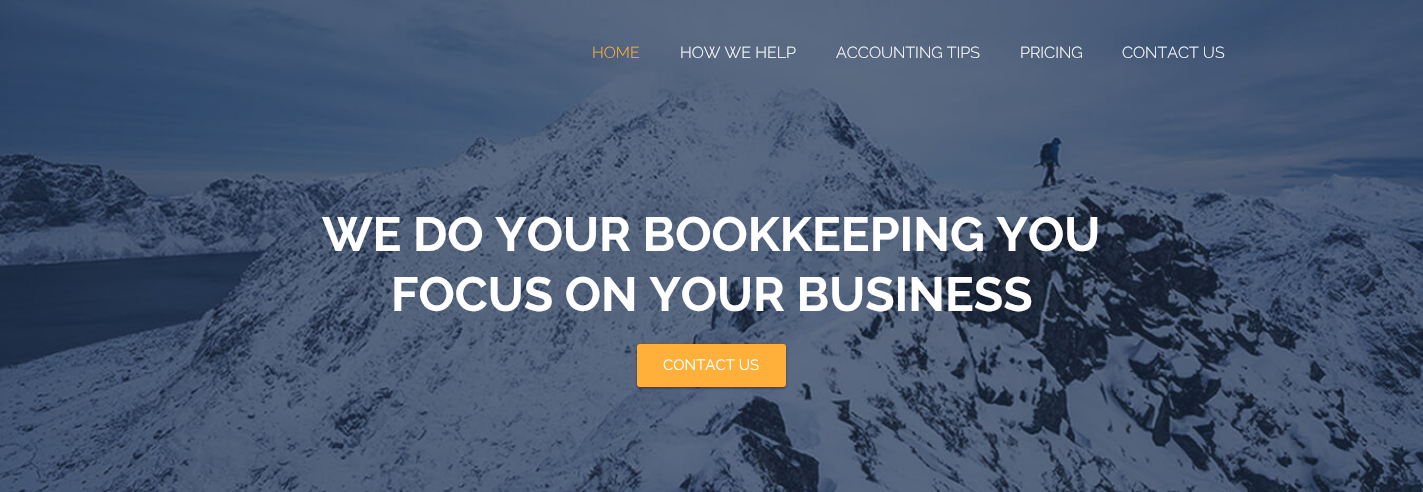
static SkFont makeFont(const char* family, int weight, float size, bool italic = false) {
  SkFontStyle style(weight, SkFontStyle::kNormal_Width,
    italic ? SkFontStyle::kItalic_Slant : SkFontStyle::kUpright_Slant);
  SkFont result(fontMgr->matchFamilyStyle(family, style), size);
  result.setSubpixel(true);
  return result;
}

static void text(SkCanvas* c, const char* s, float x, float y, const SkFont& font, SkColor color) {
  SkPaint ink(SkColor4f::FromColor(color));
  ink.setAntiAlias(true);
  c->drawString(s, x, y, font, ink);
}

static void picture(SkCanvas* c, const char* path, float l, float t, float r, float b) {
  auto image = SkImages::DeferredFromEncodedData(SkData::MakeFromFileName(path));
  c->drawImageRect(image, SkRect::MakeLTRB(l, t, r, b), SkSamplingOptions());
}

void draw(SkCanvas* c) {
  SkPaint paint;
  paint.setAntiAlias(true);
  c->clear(0xffffffff);
  picture(c, "img_01.png", 0, 0, 1423, 492);
  SkFont face1 = makeFont("Raleway", 300, 16);
  text(c, "HOME", 592, 58, face1, 0xffffb03a);
  text(c, "HOW WE HELP", 680, 58, face1, 0xffffffff);
  text(c, "ACCOUNTING TIPS", 836, 58, face1, 0xffffffff);
  text(c, "PRICING", 1020, 58, face1, 0xffffffff);
  text(c, "CONTACT US", 1122, 58, face1, 0xffffffff);
  SkFont face2 = makeFont("Raleway", 700, 48);
  text(c, "WE DO YOUR BOOKKEEPING YOU", 322, 251, face2, 0xffffffff);
  text(c, "FOCUS ON YOUR BUSINESS", 391, 311, face2, 0xffffffff);
  paint.setColor(0x4d000000);
  paint.setMaskFilter(SkMaskFilter::MakeBlur(kNormal_SkBlurStyle, 1.5f));
  c->drawRoundRect(SkRect::MakeLTRB(637, 345, 786, 388), 3, 3, paint);
  paint.setMaskFilter(nullptr);
  paint.setColor(0x1a000000);
  paint.setMaskFilter(SkMaskFilter::MakeBlur(kNormal_SkBlurStyle, 0.5f));
  c->drawRoundRect(SkRect::MakeLTRB(637, 346, 786, 389), 3, 3, paint);
  paint.setMaskFilter(nullptr);
  paint.setColor(0xffffb03a);
  c->drawRoundRect(SkRect::MakeLTRB(638, 345, 785, 386), 2, 2, paint);
  paint.setStyle(SkPaint::kStroke_Style);
  paint.setStrokeWidth(2);
  c->drawRoundRect(SkRect::MakeLTRB(638, 345, 785, 386), 2, 2, paint);
  SkFont face3 = makeFont("Raleway", 400, 15);
  text(c, "CONTACT US", 663, 370, face3, 0xffffffff);
}
